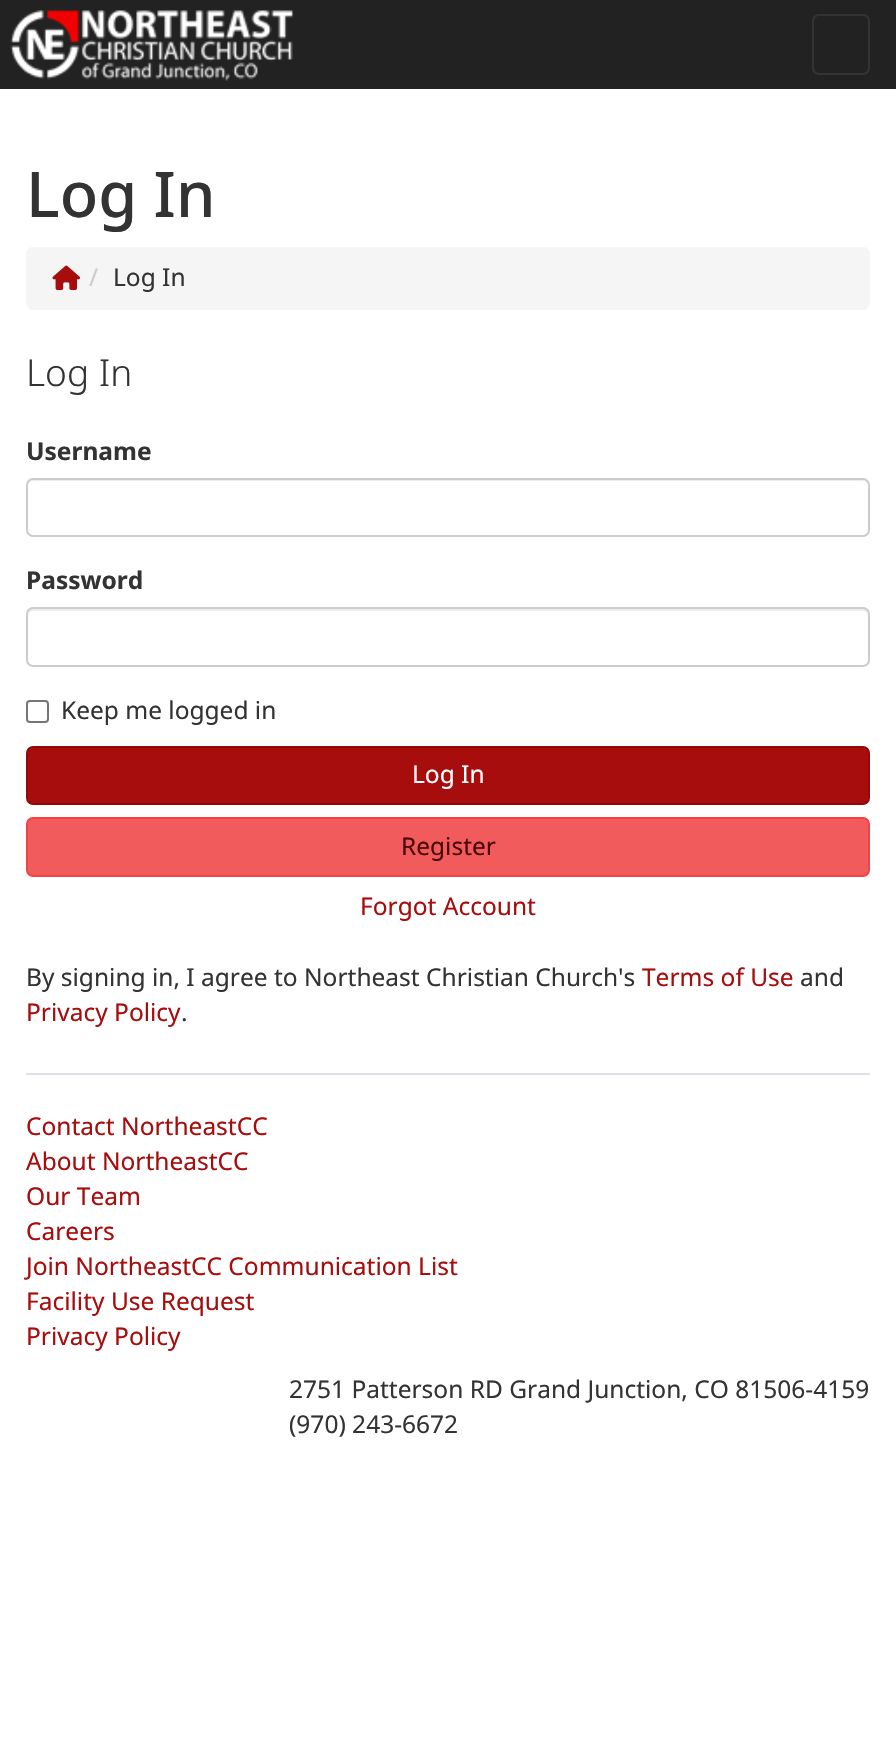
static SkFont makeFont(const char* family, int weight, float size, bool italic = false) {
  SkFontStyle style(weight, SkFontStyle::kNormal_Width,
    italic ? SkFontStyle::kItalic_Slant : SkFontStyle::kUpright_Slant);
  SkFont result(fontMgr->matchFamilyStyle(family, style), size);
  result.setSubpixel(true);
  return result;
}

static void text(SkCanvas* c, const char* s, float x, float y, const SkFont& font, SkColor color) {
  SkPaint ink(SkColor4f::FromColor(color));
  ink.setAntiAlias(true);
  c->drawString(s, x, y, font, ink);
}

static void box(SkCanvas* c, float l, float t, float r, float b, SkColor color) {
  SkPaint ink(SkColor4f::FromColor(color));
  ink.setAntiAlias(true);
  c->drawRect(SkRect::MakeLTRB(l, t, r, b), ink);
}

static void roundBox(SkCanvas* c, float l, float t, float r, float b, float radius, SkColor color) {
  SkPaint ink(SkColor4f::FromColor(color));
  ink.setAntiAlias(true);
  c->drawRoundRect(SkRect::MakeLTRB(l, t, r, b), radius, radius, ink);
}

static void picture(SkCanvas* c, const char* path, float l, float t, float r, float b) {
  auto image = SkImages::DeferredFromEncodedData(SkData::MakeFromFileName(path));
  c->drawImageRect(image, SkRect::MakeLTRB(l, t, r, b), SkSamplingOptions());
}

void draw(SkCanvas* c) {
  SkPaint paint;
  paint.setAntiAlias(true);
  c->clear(0xffffffff);
  box(c, 0, 0, 896, 89, 0xff222222);
  picture(c, "img_01.png", 10, 10, 294, 81);
  paint.setStyle(SkPaint::kStroke_Style);
  paint.setStrokeWidth(2);
  paint.setColor(0xff333333);
  c->drawRoundRect(SkRect::MakeLTRB(813, 15, 869, 74), 6, 6, paint);
  SkFont face1 = makeFont("Noto Sans", 500, 63);
  text(c, "Log In", 26, 217, face1, 0xff333333);
  roundBox(c, 26, 247, 870, 310, 7, 0xfff5f5f5);
  picture(c, "img_02.png", 52, 265, 80, 291);
  SkFont face2 = makeFont("Noto Sans", 400, 24.5f);
  text(c, "/", 89, 286, face2, 0xffcccccc);
  text(c, "Log In", 113, 286, face2, 0xff333333);
  SkFont face3 = makeFont("Noto Sans", 300, 37);
  text(c, "Log In", 26, 386, face3, 0xff333333);
  SkFont face4 = makeFont("Noto Sans", 700, 24.5f);
  text(c, "Username", 26, 460, face4, 0xff333333);
  paint.setStyle(SkPaint::kFill_Style);
  paint.setColor(0xffececec);
  c->drawPath(SkPathBuilder().moveTo(33, 481).lineTo(863, 481).cubicTo(866, 481, 868, 484, 868, 486).lineTo(868, 485).cubicTo(868, 482, 866, 480, 863, 480).lineTo(33, 480).cubicTo(30, 480, 28, 482, 28, 485).lineTo(28, 486).cubicTo(28, 484, 30, 481, 33, 481).close().detach(), paint);
  paint.setStyle(SkPaint::kStroke_Style);
  paint.setColor(0xffcccccc);
  c->drawRoundRect(SkRect::MakeLTRB(27, 479, 869, 536), 6, 6, paint);
  text(c, "Password", 26, 589, face4, 0xff333333);
  paint.setStyle(SkPaint::kFill_Style);
  paint.setColor(0xffececec);
  c->drawPath(SkPathBuilder().moveTo(33, 611).lineTo(863, 611).cubicTo(866, 611, 868, 613, 868, 616).lineTo(868, 614).cubicTo(868, 611, 866, 609, 863, 609).lineTo(33, 609).cubicTo(30, 609, 28, 611, 28, 614).lineTo(28, 616).cubicTo(28, 613, 30, 611, 33, 611).close().detach(), paint);
  paint.setStyle(SkPaint::kStroke_Style);
  paint.setColor(0xffcccccc);
  c->drawRoundRect(SkRect::MakeLTRB(27, 608, 869, 666), 6, 6, paint);
  paint.setColor(0xff767676);
  c->drawRoundRect(SkRect::MakeLTRB(27, 701, 48, 722), 3, 3, paint);
  text(c, "Keep me logged in", 61, 719, face2, 0xff333333);
  paint.setStyle(SkPaint::kFill_Style);
  paint.setColor(0xffa70d0d);
  c->drawRoundRect(SkRect::MakeLTRB(27, 747, 869, 804), 6, 6, paint);
  paint.setStyle(SkPaint::kStroke_Style);
  paint.setColor(0xff8f0b0b);
  c->drawRoundRect(SkRect::MakeLTRB(27, 747, 869, 804), 6, 6, paint);
  text(c, "Log In", 412, 783, face2, 0xffffffff);
  paint.setStyle(SkPaint::kFill_Style);
  paint.setColor(0xfff25b5b);
  c->drawRoundRect(SkRect::MakeLTRB(27, 818, 869, 876), 6, 6, paint);
  paint.setStyle(SkPaint::kStroke_Style);
  paint.setColor(0xfff04343);
  c->drawRoundRect(SkRect::MakeLTRB(27, 818, 869, 876), 6, 6, paint);
  text(c, "Register", 401, 855, face2, 0xff480606);
  text(c, "Forgot Account", 360, 915, face2, 0xffa70d0d);
  text(c, "By signing in, I agree to Northeast Christian Church's", 26, 986, face2, 0xff333333);
  text(c, "Terms of Use", 642, 986, face2, 0xffa70d0d);
  text(c, "and", 800, 986, face2, 0xff333333);
  text(c, "Privacy Policy", 26, 1021, face2, 0xffa70d0d);
  text(c, ".", 181, 1021, face2, 0xff333333);
  box(c, 26, 1073, 870, 1075, 0xffdee2e6);
  text(c, "Contact NortheastCC", 26, 1135, face2, 0xffa70d0d);
  text(c, "About NortheastCC", 26, 1170, face2, 0xffa70d0d);
  text(c, "Our Team", 26, 1205, face2, 0xffa70d0d);
  text(c, "Careers", 26, 1240, face2, 0xffa70d0d);
  text(c, "Join NortheastCC Communication List", 26, 1275, face2, 0xffa70d0d);
  text(c, "Facility Use Request", 26, 1310, face2, 0xffa70d0d);
  text(c, "Privacy Policy", 26, 1345, face2, 0xffa70d0d);
  text(c, "2751 Patterson RD Grand Junction, CO 81506-4159", 289, 1398, face2, 0xff333333);
  text(c, "(970) 243-6672", 289, 1433, face2, 0xff333333);
}
